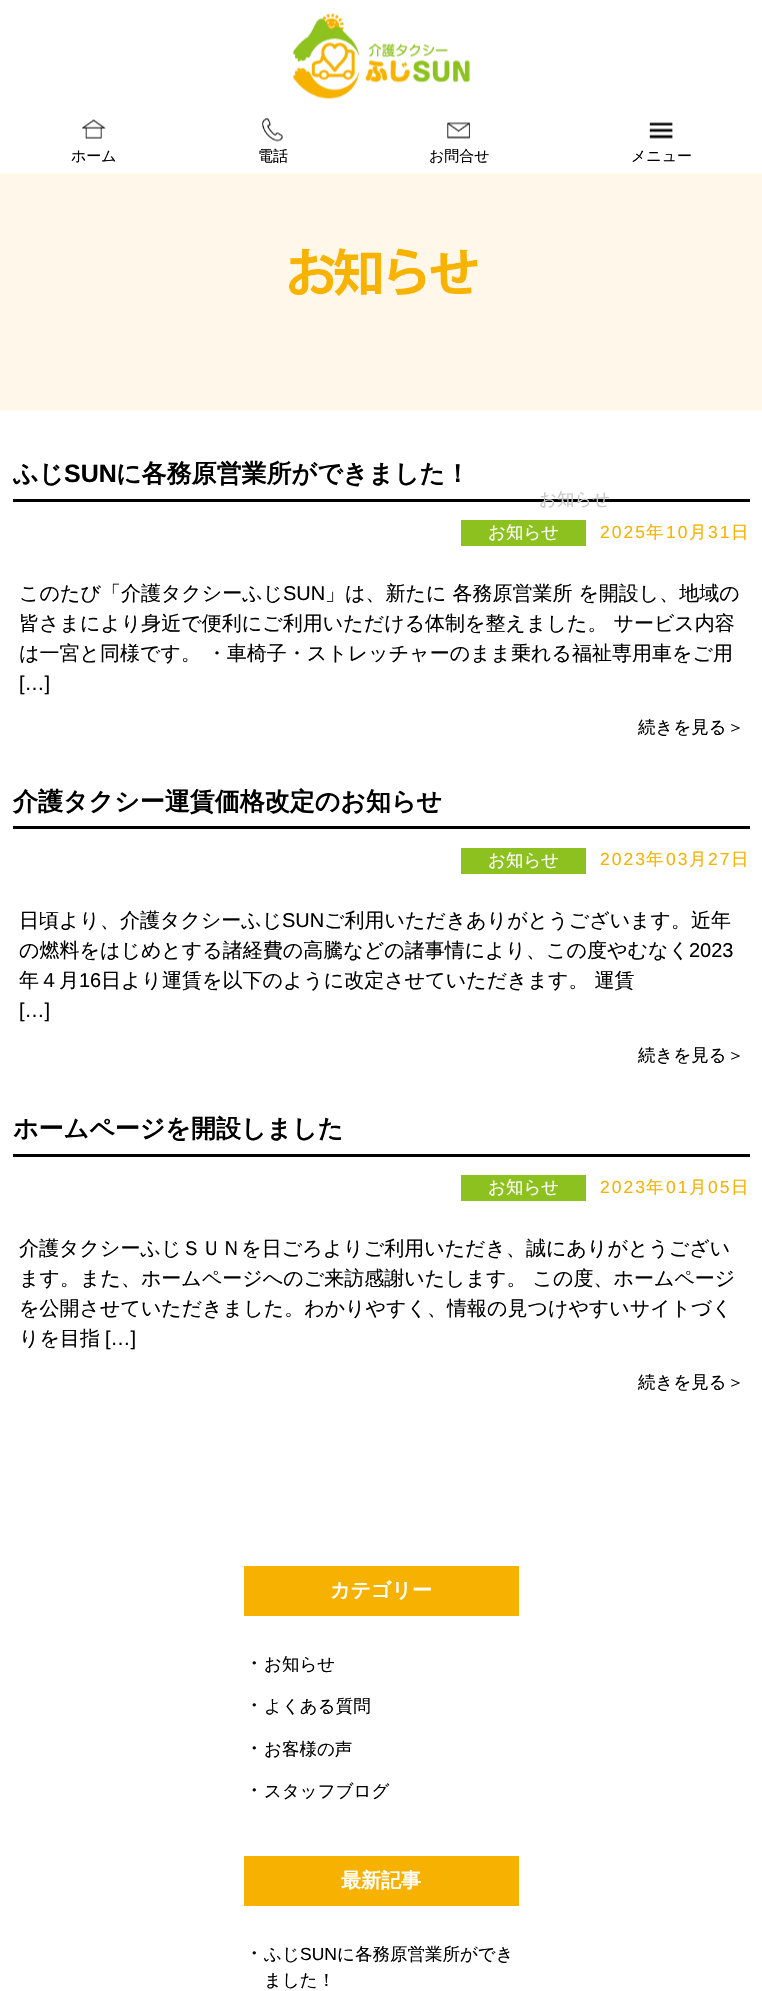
static SkFont makeFont(const char* family, int weight, float size, bool italic = false) {
  SkFontStyle style(weight, SkFontStyle::kNormal_Width,
    italic ? SkFontStyle::kItalic_Slant : SkFontStyle::kUpright_Slant);
  SkFont result(fontMgr->matchFamilyStyle(family, style), size);
  result.setSubpixel(true);
  return result;
}

static void text(SkCanvas* c, const char* s, float x, float y, const SkFont& font, SkColor color) {
  SkPaint ink(SkColor4f::FromColor(color));
  ink.setAntiAlias(true);
  c->drawString(s, x, y, font, ink);
}

static void spacedText(SkCanvas* c, const char* s, float x, float y, const SkFont& font, const SkPaint& ink, float letter, float word) {
  std::vector<SkGlyphID> glyphs(font.countText(s, strlen(s), SkTextEncoding::kUTF8));
  std::vector<float> xs(glyphs.size());
  font.textToGlyphs(s, strlen(s), SkTextEncoding::kUTF8, glyphs);
  font.getXPos(glyphs, xs, x);
  float extra = 0;
  for (size_t i = 0; i < glyphs.size(); i++) {
    xs[i] += extra;
    extra += letter + word * (glyphs[i] == font.unicharToGlyph(' '));
  }
  c->drawTextBlob(SkTextBlob::MakeFromPosHGlyphs(glyphs, xs, y, font), 0, 0, ink);
}

static void box(SkCanvas* c, float l, float t, float r, float b, SkColor color) {
  SkPaint ink(SkColor4f::FromColor(color));
  ink.setAntiAlias(true);
  c->drawRect(SkRect::MakeLTRB(l, t, r, b), ink);
}

static void picture(SkCanvas* c, const char* path, float l, float t, float r, float b) {
  auto image = SkImages::DeferredFromEncodedData(SkData::MakeFromFileName(path));
  c->drawImageRect(image, SkRect::MakeLTRB(l, t, r, b), SkSamplingOptions());
}

void draw(SkCanvas* c) {
  SkPaint paint;
  paint.setAntiAlias(true);
  c->clear(0xffffffff);
  picture(c, "img_01.png", 81, 119, 106, 139);
  SkFont face1 = makeFont("WenQuanYi Zen Hei", 500, 15);
  text(c, "ホーム", 71, 161, face1, 0xff000000);
  picture(c, "img_02.png", 262, 117, 283, 142);
  text(c, "電話", 258, 161, face1, 0xff000000);
  picture(c, "img_03.png", 447, 122, 470, 139);
  text(c, "お問合せ", 429, 161, face1, 0xff000000);
  picture(c, "img_04.png", 649, 122, 673, 139);
  text(c, "メニュー", 631, 161, face1, 0xff000000);
  picture(c, "img_05.png", 292, 13, 470, 99);
  box(c, 13, 499, 750, 502, 0xff000000);
  SkFont face2 = makeFont("WenQuanYi Zen Hei", 500, 17.5f);
  text(c, "お知らせ", 539, 505, face2, 0xffc7c7c7);
  box(c, 0, 173, 762, 411, 0xfffff7e9);
  picture(c, "img_06.png", 289, 248, 478, 296);
  SkFont face3 = makeFont("WenQuanYi Zen Hei", 700, 25);
  text(c, "ふじ", 13, 482, face3, 0xff000000);
  SkFont face4 = makeFont("Liberation Sans", 700, 25);
  text(c, "SUN", 64, 482, face4, 0xff000000);
  text(c, "に各務原営業所ができました！", 116, 482, face3, 0xff000000);
  box(c, 461, 520, 586, 546, 0xff8cc11f);
  text(c, "お知らせ", 488, 538, face2, 0xffffffff);
  SkFont face5 = makeFont("Liberation Sans", 400, 17.5f);
  paint.setColor(0xfff7b100);
  spacedText(c, "2025", 600, 538, face5, paint, 2, 0);
  spacedText(c, "年", 646, 538, face2, paint, 2, 0);
  spacedText(c, "10", 666, 538, face5, paint, 2, 0);
  spacedText(c, "月", 689, 538, face2, paint, 2, 0);
  spacedText(c, "31", 708, 538, face5, paint, 2, 0);
  spacedText(c, "日", 731, 538, face2, paint, 2, 0);
  SkFont face6 = makeFont("WenQuanYi Zen Hei", 500, 20);
  text(c, "このたび「介護タクシーふじ", 19, 600, face6, 0xff000000);
  SkFont face7 = makeFont("Liberation Sans", 400, 20);
  text(c, "SUN", 283, 600, face7, 0xff000000);
  text(c, "」は、新たに 各務原営業所 を開設し、地域の", 325, 600, face6, 0xff000000);
  text(c, "皆さまにより身近で便利にご利用いただける体制を整えました。 サービス内容", 19, 630, face6, 0xff000000);
  text(c, "は一宮と同様です。 ・車椅子・ストレッチャーのまま乗れる福祉専用車をご用", 19, 660, face6, 0xff000000);
  text(c, "[…]", 19, 690, face7, 0xff000000);
  text(c, "続きを見る＞", 638, 733, face2, 0xff000000);
  box(c, 13, 826, 750, 829, 0xff000000);
  text(c, "介護タクシー運賃価格改定のお知らせ", 13, 810, face3, 0xff000000);
  box(c, 461, 848, 586, 874, 0xff8cc11f);
  text(c, "お知らせ", 488, 866, face2, 0xffffffff);
  spacedText(c, "2023", 600, 865, face5, paint, 2, 0);
  spacedText(c, "年", 646, 865, face2, paint, 2, 0);
  spacedText(c, "03", 666, 865, face5, paint, 2, 0);
  spacedText(c, "月", 689, 865, face2, paint, 2, 0);
  spacedText(c, "27", 708, 865, face5, paint, 2, 0);
  spacedText(c, "日", 731, 865, face2, paint, 2, 0);
  text(c, "日頃より、介護タクシーふじ", 19, 927, face6, 0xff000000);
  text(c, "SUN", 282, 927, face7, 0xff000000);
  text(c, "ご利用いただきありがとうございます。近年", 324, 927, face6, 0xff000000);
  text(c, "の燃料をはじめとする諸経費の高騰などの諸事情により、この度やむなく", 19, 957, face6, 0xff000000);
  text(c, "2023", 689, 957, face7, 0xff000000);
  text(c, "年４月", 19, 987, face6, 0xff000000);
  text(c, "16", 79, 987, face7, 0xff000000);
  text(c, "日より運賃を以下のように改定させていただきます。 運賃", 101, 987, face6, 0xff000000);
  text(c, "[…]", 19, 1017, face7, 0xff000000);
  text(c, "続きを見る＞", 638, 1061, face2, 0xff000000);
  box(c, 13, 1154, 750, 1157, 0xff000000);
  text(c, "ホームページを開設しました", 13, 1137, face3, 0xff000000);
  box(c, 461, 1175, 586, 1201, 0xff8cc11f);
  text(c, "お知らせ", 488, 1193, face2, 0xffffffff);
  spacedText(c, "2023", 600, 1193, face5, paint, 2, 0);
  spacedText(c, "年", 646, 1193, face2, paint, 2, 0);
  spacedText(c, "01", 666, 1193, face5, paint, 2, 0);
  spacedText(c, "月", 689, 1193, face2, paint, 2, 0);
  spacedText(c, "05", 708, 1193, face5, paint, 2, 0);
  spacedText(c, "日", 731, 1193, face2, paint, 2, 0);
  text(c, "介護タクシーふじＳＵＮを日ごろよりご利用いただき、誠にありがとうござい", 19, 1255, face6, 0xff000000);
  text(c, "ます。また、ホームページへのご来訪感謝いたします。 この度、ホームページ", 19, 1285, face6, 0xff000000);
  text(c, "を公開させていただきました。わかりやすく、情報の見つけやすいサイトづく", 19, 1315, face6, 0xff000000);
  text(c, "りを目指", 19, 1345, face6, 0xff000000);
  text(c, "[…]", 105, 1345, face7, 0xff000000);
  text(c, "続きを見る＞", 638, 1388, face2, 0xff000000);
  box(c, 244, 1566, 519, 1616, 0xfff7b100);
  SkFont face8 = makeFont("WenQuanYi Zen Hei", 700, 20);
  text(c, "カテゴリー", 330, 1597, face8, 0xffffffff);
  text(c, "・", 244, 1670, face6, 0xff000000);
  text(c, "お知らせ", 264, 1670, face2, 0xff000000);
  text(c, "・", 244, 1712, face6, 0xff000000);
  text(c, "よくある質問", 264, 1712, face2, 0xff000000);
  text(c, "・", 244, 1755, face6, 0xff000000);
  text(c, "お客様の声", 264, 1755, face2, 0xff000000);
  text(c, "・", 244, 1797, face6, 0xff000000);
  text(c, "スタッフブログ", 264, 1797, face2, 0xff000000);
  box(c, 244, 1856, 519, 1906, 0xfff7b100);
  text(c, "最新記事", 341, 1887, face8, 0xffffffff);
  text(c, "・", 244, 1960, face6, 0xff000000);
  text(c, "ふじ", 264, 1960, face2, 0xff000000);
  text(c, "SUN", 300, 1960, face5, 0xff000000);
  text(c, "に各務原営業所ができ", 337, 1960, face2, 0xff000000);
  text(c, "ました！", 264, 1986, face2, 0xff000000);
}
